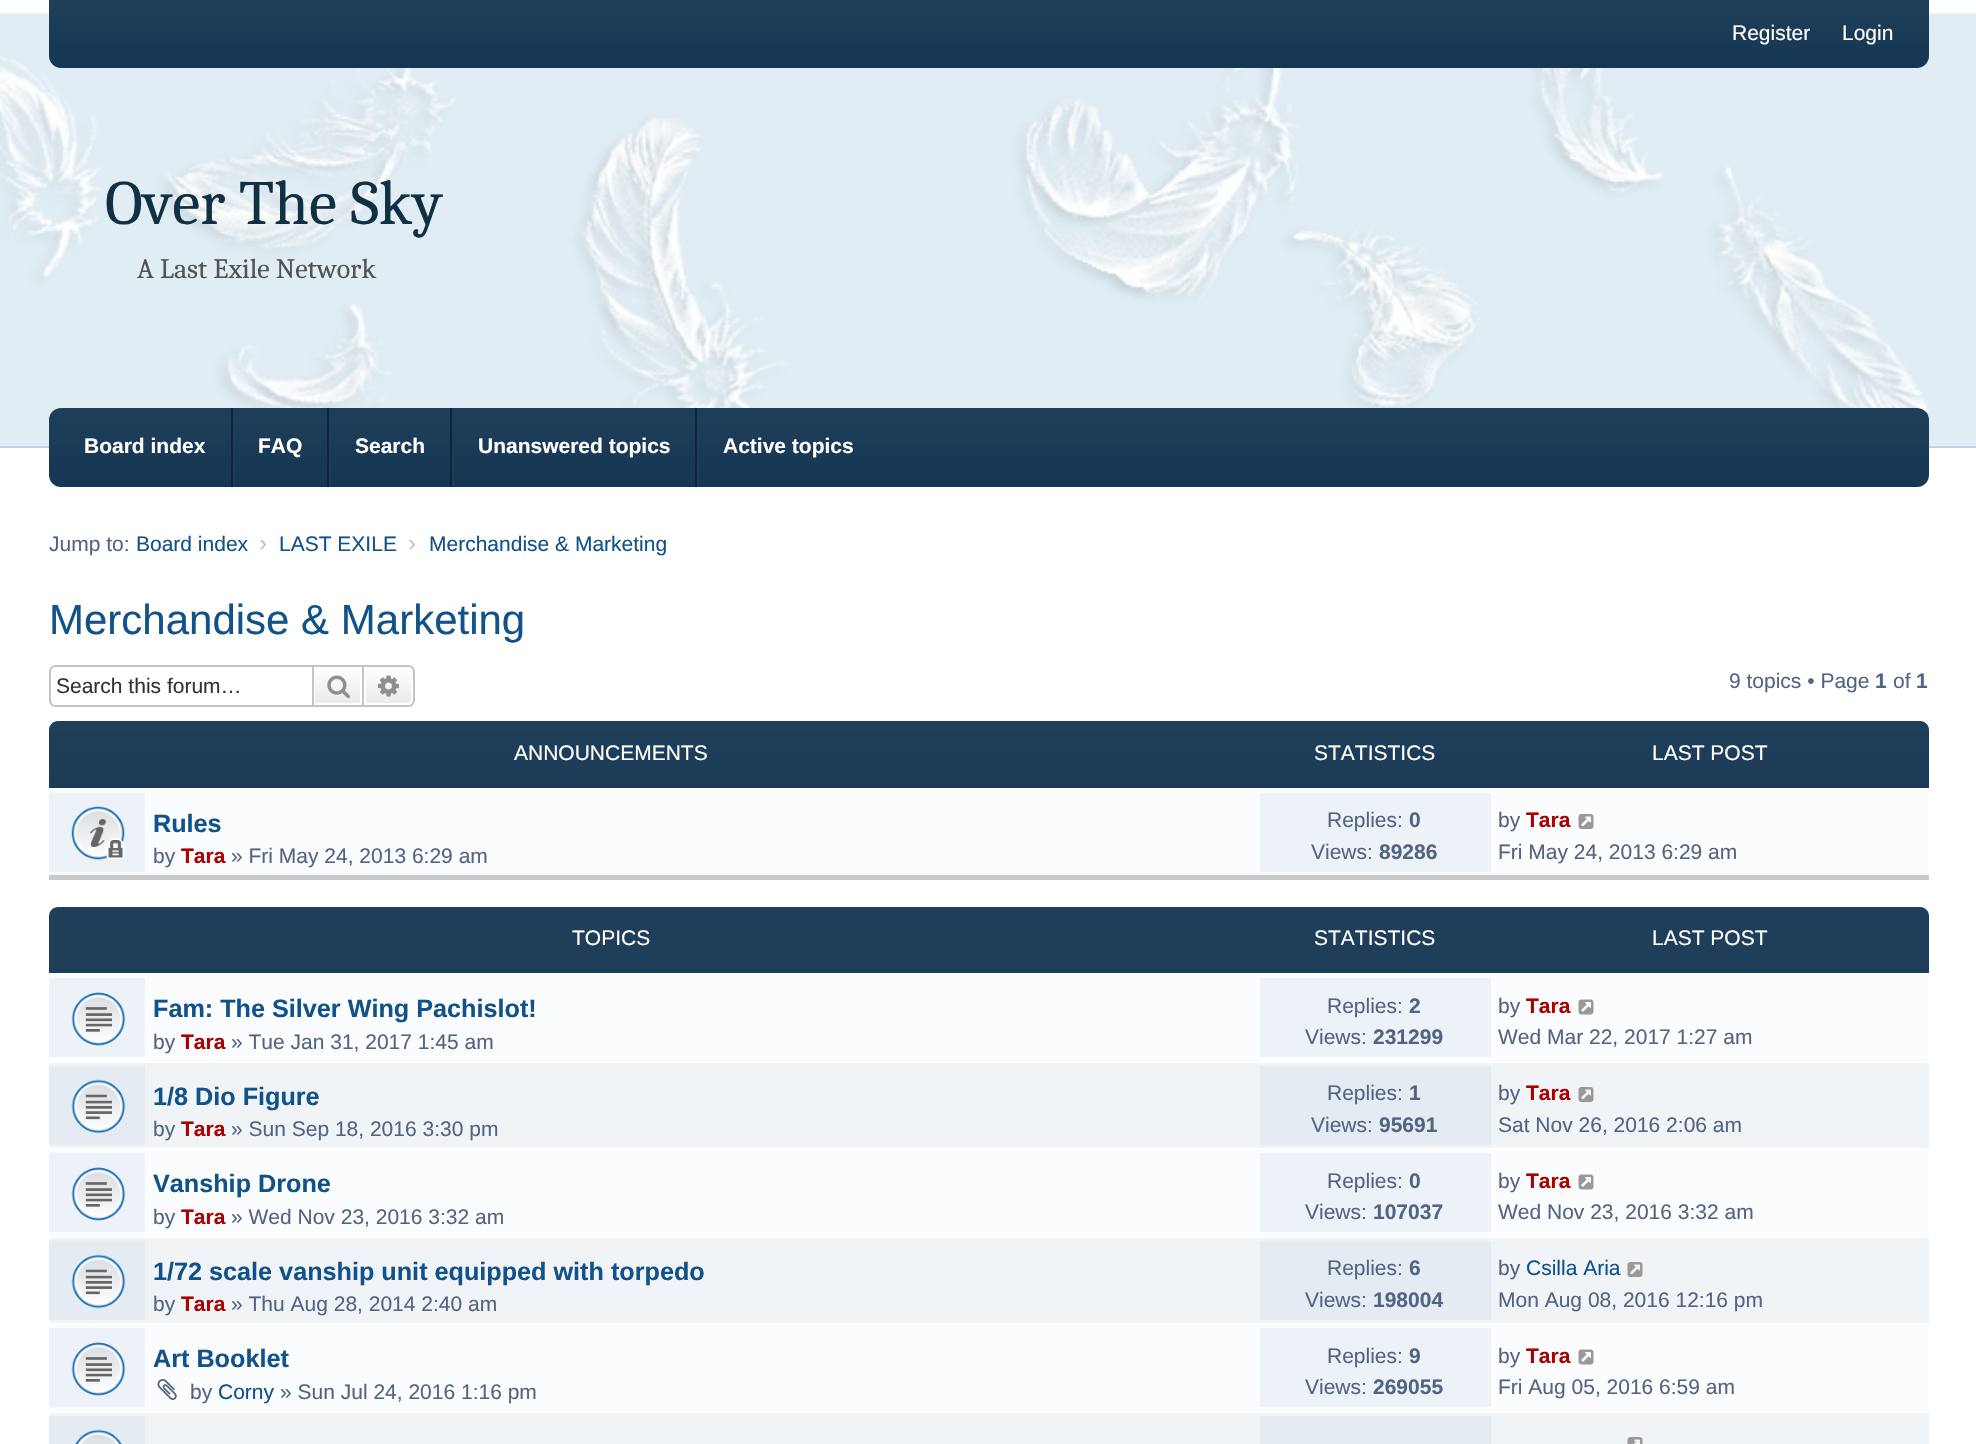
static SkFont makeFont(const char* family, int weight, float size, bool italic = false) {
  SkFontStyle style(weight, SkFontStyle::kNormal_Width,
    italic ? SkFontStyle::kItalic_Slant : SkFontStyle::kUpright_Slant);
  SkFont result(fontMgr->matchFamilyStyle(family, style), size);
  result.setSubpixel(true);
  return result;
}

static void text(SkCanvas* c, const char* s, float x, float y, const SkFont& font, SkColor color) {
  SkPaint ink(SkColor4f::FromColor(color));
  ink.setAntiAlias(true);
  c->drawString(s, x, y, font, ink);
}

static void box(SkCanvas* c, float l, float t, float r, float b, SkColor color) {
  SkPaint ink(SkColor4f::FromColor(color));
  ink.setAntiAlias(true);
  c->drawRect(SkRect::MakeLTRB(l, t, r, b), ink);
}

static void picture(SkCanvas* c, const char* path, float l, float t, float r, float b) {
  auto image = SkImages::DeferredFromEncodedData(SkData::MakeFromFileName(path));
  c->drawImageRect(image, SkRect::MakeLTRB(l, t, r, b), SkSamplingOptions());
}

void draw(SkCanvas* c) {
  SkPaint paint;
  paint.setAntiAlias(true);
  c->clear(0xffffffff);
  box(c, 0, 446, 1976, 448, 0xffbad1de);
  picture(c, "img_01.png", 0, 0, 1976, 447);
  {
    const SkColor colors[] = {0xff1f3e59, 0xff153753};
    const float stops[] = {0, 1};
    const SkPoint ends[] = {{989, 0}, {989, 68}};
    paint.setShader(SkGradientShader::MakeLinear(ends, colors, stops, 2, SkTileMode::kClamp));
    paint.setAlpha(255);
  }
  c->drawPath(SkPathBuilder().moveTo(49, 0).lineTo(1929, 0).lineTo(1929, 56).cubicTo(1929, 62.5f, 1923.5f, 68, 1917, 68).lineTo(61, 68).cubicTo(54.5f, 68, 49, 62.5f, 49, 56).close().detach(), paint);
  SkFont face1 = makeFont("Liberation Sans", 400, 21);
  text(c, "Register", 1732, 40, face1, 0xffffffff);
  text(c, "Login", 1842, 40, face1, 0xffffffff);
  SkFont face2 = makeFont("Caladea", 400, 63);
  text(c, "Over The Sky", 105, 224, face2, 0xff103143);
  SkFont face3 = makeFont("Caladea", 400, 28);
  text(c, "A Last Exile Network", 137, 278, face3, 0xff535353);
  {
    const SkColor colors[] = {0xff1f3e59, 0xff153753};
    const float stops[] = {0, 1};
    const SkPoint ends[] = {{989, 408}, {989, 487}};
    paint.setShader(SkGradientShader::MakeLinear(ends, colors, stops, 2, SkTileMode::kClamp));
    paint.setAlpha(255);
  }
  c->drawRoundRect(SkRect::MakeLTRB(49, 408, 1929, 487), 12, 12, paint);
  box(c, 231, 408, 233, 487, 0xff102435);
  SkFont face4 = makeFont("Liberation Sans", 700, 21);
  text(c, "Board index", 84, 453, face4, 0xffffffff);
  box(c, 327, 408, 329, 487, 0xff102435);
  box(c, 233, 408, 235, 487, 0xff1c3e5c);
  text(c, "FAQ", 258, 453, face4, 0xffffffff);
  box(c, 450, 408, 452, 487, 0xff102435);
  box(c, 329, 408, 331, 487, 0xff1c3e5c);
  text(c, "Search", 355, 453, face4, 0xffffffff);
  box(c, 695, 408, 697, 487, 0xff102435);
  box(c, 452, 408, 454, 487, 0xff1c3e5c);
  text(c, "Unanswered topics", 478, 453, face4, 0xffffffff);
  box(c, 697, 408, 699, 487, 0xff1c3e5c);
  text(c, "Active topics", 723, 453, face4, 0xffffffff);
  text(c, "Jump to:", 49, 551, face1, 0xff536482);
  text(c, "Board index", 136, 551, face1, 0xff105289);
  SkFont face5 = makeFont("Liberation Sans", 400, 24);
  text(c, "›", 259, 551, face5, 0xffb7c9d7);
  text(c, "LAST EXILE", 279, 551, face1, 0xff105289);
  text(c, "›", 408, 551, face5, 0xffb7c9d7);
  text(c, "Merchandise & Marketing", 429, 551, face1, 0xff105289);
  SkFont face6 = makeFont("Liberation Sans", 400, 42);
  text(c, "Merchandise & Marketing", 49, 634, face6, 0xff105289);
  paint.setShader(nullptr);
  paint.setColor(0xffc7c3bf);
  c->drawPath(SkPathBuilder(SkPathFillType::kEvenOdd).moveTo(56, 665).lineTo(312, 665).lineTo(312, 707).lineTo(56, 707).cubicTo(52, 707, 49, 704, 49, 700).lineTo(49, 672).cubicTo(49, 668, 52, 665, 56, 665).close().moveTo(56, 667).lineTo(312, 667).lineTo(312, 705).lineTo(56, 705).cubicTo(53, 705, 51, 703, 51, 700).lineTo(51, 672).cubicTo(51, 669, 53, 667, 56, 667).close().detach(), paint);
  text(c, "Search this forum…", 56, 693, face1, 0xff333333);
  {
    const SkColor colors[] = {0xffffffff, 0xffe9e9e9};
    const float stops[] = {0, 1};
    const SkPoint ends[] = {{338, 667}, {338, 705}};
    paint.setShader(SkGradientShader::MakeLinear(ends, colors, stops, 2, SkTileMode::kClamp));
    paint.setAlpha(255);
  }
  c->drawRect(SkRect::MakeLTRB(315, 671, 360, 703), paint);
  paint.setStyle(SkPaint::kStroke_Style);
  paint.setStrokeWidth(2);
  paint.setShader(nullptr);
  paint.setColor(0xffc7c3bf);
  c->drawRect(SkRect::MakeLTRB(313, 666, 363, 706), paint);
  picture(c, "img_02.png", 327, 675, 350, 699);
  paint.setStyle(SkPaint::kFill_Style);
  {
    const SkColor colors[] = {0xffffffff, 0xffe9e9e9};
    const float stops[] = {0, 1};
    const SkPoint ends[] = {{389, 667}, {389, 705}};
    paint.setShader(SkGradientShader::MakeLinear(ends, colors, stops, 2, SkTileMode::kClamp));
    paint.setAlpha(255);
  }
  c->drawPath(SkPathBuilder().moveTo(365, 668).lineTo(408, 668).cubicTo(410, 668, 412, 670, 412, 672).lineTo(412, 700).cubicTo(412, 702, 410, 704, 408, 704).lineTo(365, 704).close().detach(), paint);
  paint.setStyle(SkPaint::kStroke_Style);
  paint.setShader(nullptr);
  paint.setColor(0xffffffff);
  c->drawPath(SkPathBuilder().moveTo(365, 668).lineTo(408, 668).cubicTo(410, 668, 412, 670, 412, 672).lineTo(412, 700).cubicTo(412, 702, 410, 704, 408, 704).lineTo(365, 704).close().detach(), paint);
  paint.setStyle(SkPaint::kFill_Style);
  paint.setColor(0xffc7c3bf);
  c->drawPath(SkPathBuilder(SkPathFillType::kEvenOdd).moveTo(364, 665).lineTo(408, 665).cubicTo(412, 665, 415, 668, 415, 672).lineTo(415, 700).cubicTo(415, 704, 412, 707, 408, 707).lineTo(364, 707).close().moveTo(364, 667).lineTo(408, 667).cubicTo(411, 667, 413, 669, 413, 672).lineTo(413, 700).cubicTo(413, 703, 411, 705, 408, 705).lineTo(364, 705).close().detach(), paint);
  picture(c, "img_03.png", 378, 675, 399, 697);
  text(c, "9 topics • Page", 1729, 688, face1, 0xff536482);
  text(c, "1", 1875, 688, face4, 0xff536482);
  text(c, "of", 1893, 688, face1, 0xff536482);
  text(c, "1", 1916, 688, face4, 0xff536482);
  {
    const SkColor colors[] = {0xff1f3e59, 0xff153753};
    const float stops[] = {0, 1};
    const SkPoint ends[] = {{989, 721}, {989, 875}};
    paint.setShader(SkGradientShader::MakeLinear(ends, colors, stops, 2, SkTileMode::kClamp));
    paint.setAlpha(255);
  }
  c->drawPath(SkPathBuilder().moveTo(58, 721).lineTo(1920, 721).cubicTo(1925, 721, 1929, 725, 1929, 730).lineTo(1929, 875).lineTo(49, 875).lineTo(49, 730).cubicTo(49, 725, 53, 721, 58, 721).close().detach(), paint);
  box(c, 49, 875, 1929, 880, 0xffcacaca);
  text(c, "ANNOUNCEMENTS", 514, 760, face1, 0xffffffff);
  text(c, "STATISTICS", 1314, 760, face1, 0xffffffff);
  text(c, "LAST POST", 1652, 760, face1, 0xffffffff);
  box(c, 49, 790, 1929, 875, 0xfffafcfe);
  box(c, 49, 788, 1929, 790, 0xffffffff);
  box(c, 49, 793, 145, 872, 0xffecf2f7);
  picture(c, "img_04.png", 71, 806, 125, 860);
  SkFont face7 = makeFont("Liberation Sans", 700, 25.2f);
  text(c, "Rules", 153, 832, face7, 0xff105289);
  text(c, "by", 153, 863, face1, 0xff536482);
  text(c, "Tara", 181, 863, face4, 0xffaa0000);
  text(c, "» Fri May 24, 2013 6:29 am", 231, 863, face1, 0xff536482);
  box(c, 1260, 793, 1491, 872, 0xffecf2f7);
  text(c, "Replies:", 1327, 827, face1, 0xff536482);
  text(c, "0", 1409, 827, face4, 0xff536482);
  text(c, "Views:", 1311, 859, face1, 0xff536482);
  text(c, "89286", 1379, 859, face4, 0xff536482);
  text(c, "by", 1498, 827, face1, 0xff536482);
  text(c, "Tara", 1526, 827, face4, 0xffaa0000);
  picture(c, "img_05.png", 1578, 814, 1594, 829);
  text(c, "Fri May 24, 2013 6:29 am", 1498, 859, face1, 0xff536482);
  {
    const SkColor colors[] = {0xff1f3e59, 0xff153753};
    const float stops[] = {0, 1};
    const SkPoint ends[] = {{989, 907}, {989, 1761}};
    paint.setShader(SkGradientShader::MakeLinear(ends, colors, stops, 2, SkTileMode::kClamp));
    paint.setAlpha(255);
  }
  c->drawPath(SkPathBuilder().moveTo(58, 907).lineTo(1920, 907).cubicTo(1925, 907, 1929, 911, 1929, 916).lineTo(1929, 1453).lineTo(49, 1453).lineTo(49, 916).cubicTo(49, 911, 53, 907, 58, 907).close().detach(), paint);
  text(c, "TOPICS", 572, 945, face1, 0xffffffff);
  text(c, "STATISTICS", 1314, 945, face1, 0xffffffff);
  text(c, "LAST POST", 1652, 945, face1, 0xffffffff);
  box(c, 49, 975, 1929, 1411, 0xfffafcfe);
  box(c, 49, 973, 1929, 975, 0xffffffff);
  box(c, 49, 978, 145, 1057, 0xffecf2f7);
  picture(c, "img_06.png", 71, 992, 126, 1046);
  text(c, "Fam: The Silver Wing Pachislot!", 153, 1017, face7, 0xff105289);
  text(c, "by", 153, 1049, face1, 0xff536482);
  text(c, "Tara", 181, 1049, face4, 0xffaa0000);
  text(c, "» Tue Jan 31, 2017 1:45 am", 231, 1049, face1, 0xff536482);
  box(c, 1260, 978, 1491, 1057, 0xffecf2f7);
  text(c, "Replies:", 1327, 1013, face1, 0xff536482);
  text(c, "2", 1409, 1013, face4, 0xff536482);
  text(c, "Views:", 1305, 1044, face1, 0xff536482);
  text(c, "231299", 1373, 1044, face4, 0xff536482);
  text(c, "by", 1498, 1013, face1, 0xff536482);
  text(c, "Tara", 1526, 1013, face4, 0xffaa0000);
  picture(c, "img_07.png", 1578, 999, 1594, 1015);
  text(c, "Wed Mar 22, 2017 1:27 am", 1498, 1044, face1, 0xff536482);
  box(c, 49, 1063, 1929, 1148, 0xfff0f4f7);
  box(c, 49, 1061, 1929, 1063, 0xffffffff);
  box(c, 49, 1066, 145, 1145, 0xffe4ebf2);
  picture(c, "img_08.png", 71, 1079, 126, 1134);
  text(c, "1/8 Dio Figure", 153, 1105, face7, 0xff105289);
  text(c, "by", 153, 1136, face1, 0xff536482);
  text(c, "Tara", 181, 1136, face4, 0xffaa0000);
  text(c, "» Sun Sep 18, 2016 3:30 pm", 231, 1136, face1, 0xff536482);
  box(c, 1260, 1066, 1491, 1145, 0xffe4ebf2);
  text(c, "Replies:", 1327, 1100, face1, 0xff536482);
  text(c, "1", 1409, 1100, face4, 0xff536482);
  text(c, "Views:", 1311, 1132, face1, 0xff536482);
  text(c, "95691", 1379, 1132, face4, 0xff536482);
  text(c, "by", 1498, 1100, face1, 0xff536482);
  text(c, "Tara", 1526, 1100, face4, 0xffaa0000);
  picture(c, "img_09.png", 1578, 1087, 1594, 1102);
  text(c, "Sat Nov 26, 2016 2:06 am", 1498, 1132, face1, 0xff536482);
  box(c, 49, 1148, 1929, 1150, 0xffffffff);
  box(c, 49, 1153, 145, 1232, 0xffecf2f7);
  picture(c, "img_06.png", 71, 1167, 126, 1221);
  text(c, "Vanship Drone", 153, 1192, face7, 0xff105289);
  text(c, "by", 153, 1224, face1, 0xff536482);
  text(c, "Tara", 181, 1224, face4, 0xffaa0000);
  text(c, "» Wed Nov 23, 2016 3:32 am", 231, 1224, face1, 0xff536482);
  box(c, 1260, 1153, 1491, 1232, 0xffecf2f7);
  text(c, "Replies:", 1327, 1188, face1, 0xff536482);
  text(c, "0", 1409, 1188, face4, 0xff536482);
  text(c, "Views:", 1305, 1219, face1, 0xff536482);
  text(c, "107037", 1373, 1219, face4, 0xff536482);
  text(c, "by", 1498, 1188, face1, 0xff536482);
  text(c, "Tara", 1526, 1188, face4, 0xffaa0000);
  picture(c, "img_10.png", 1578, 1174, 1594, 1190);
  text(c, "Wed Nov 23, 2016 3:32 am", 1498, 1219, face1, 0xff536482);
  box(c, 49, 1238, 1929, 1323, 0xfff0f4f7);
  box(c, 49, 1236, 1929, 1238, 0xffffffff);
  box(c, 49, 1241, 145, 1320, 0xffe4ebf2);
  picture(c, "img_08.png", 71, 1254, 126, 1309);
  text(c, "1/72 scale vanship unit equipped with torpedo", 153, 1280, face7, 0xff105289);
  text(c, "by", 153, 1311, face1, 0xff536482);
  text(c, "Tara", 181, 1311, face4, 0xffaa0000);
  text(c, "» Thu Aug 28, 2014 2:40 am", 231, 1311, face1, 0xff536482);
  box(c, 1260, 1241, 1491, 1320, 0xffe4ebf2);
  text(c, "Replies:", 1327, 1275, face1, 0xff536482);
  text(c, "6", 1409, 1275, face4, 0xff536482);
  text(c, "Views:", 1305, 1307, face1, 0xff536482);
  text(c, "198004", 1373, 1307, face4, 0xff536482);
  text(c, "by", 1498, 1275, face1, 0xff536482);
  text(c, "Csilla Aria", 1526, 1275, face1, 0xff105289);
  picture(c, "img_09.png", 1627, 1262, 1643, 1277);
  text(c, "Mon Aug 08, 2016 12:16 pm", 1498, 1307, face1, 0xff536482);
  box(c, 49, 1323, 1929, 1325, 0xffffffff);
  box(c, 49, 1328, 145, 1407, 0xffecf2f7);
  picture(c, "img_06.png", 71, 1342, 126, 1396);
  text(c, "Art Booklet", 153, 1367, face7, 0xff105289);
  picture(c, "img_11.png", 157, 1379, 177, 1400);
  text(c, "by", 190, 1399, face1, 0xff536482);
  text(c, "Corny", 218, 1399, face1, 0xff105289);
  text(c, "» Sun Jul 24, 2016 1:16 pm", 280, 1399, face1, 0xff536482);
  box(c, 1260, 1328, 1491, 1407, 0xffecf2f7);
  text(c, "Replies:", 1327, 1363, face1, 0xff536482);
  text(c, "9", 1409, 1363, face4, 0xff536482);
  text(c, "Views:", 1305, 1394, face1, 0xff536482);
  text(c, "269055", 1373, 1394, face4, 0xff536482);
  text(c, "by", 1498, 1363, face1, 0xff536482);
  text(c, "Tara", 1526, 1363, face4, 0xffaa0000);
  picture(c, "img_10.png", 1578, 1349, 1594, 1365);
  text(c, "Fri Aug 05, 2016 6:59 am", 1498, 1394, face1, 0xff536482);
  box(c, 49, 1413, 1929, 1444, 0xfff0f4f7);
  box(c, 49, 1411, 1929, 1413, 0xffffffff);
  box(c, 49, 1416, 145, 1444, 0xffe4ebf2);
  picture(c, "img_12.png", 75, 1429, 122, 1444);
  box(c, 1260, 1416, 1491, 1444, 0xffe4ebf2);
  picture(c, "img_13.png", 1627, 1437, 1643, 1444);
}
